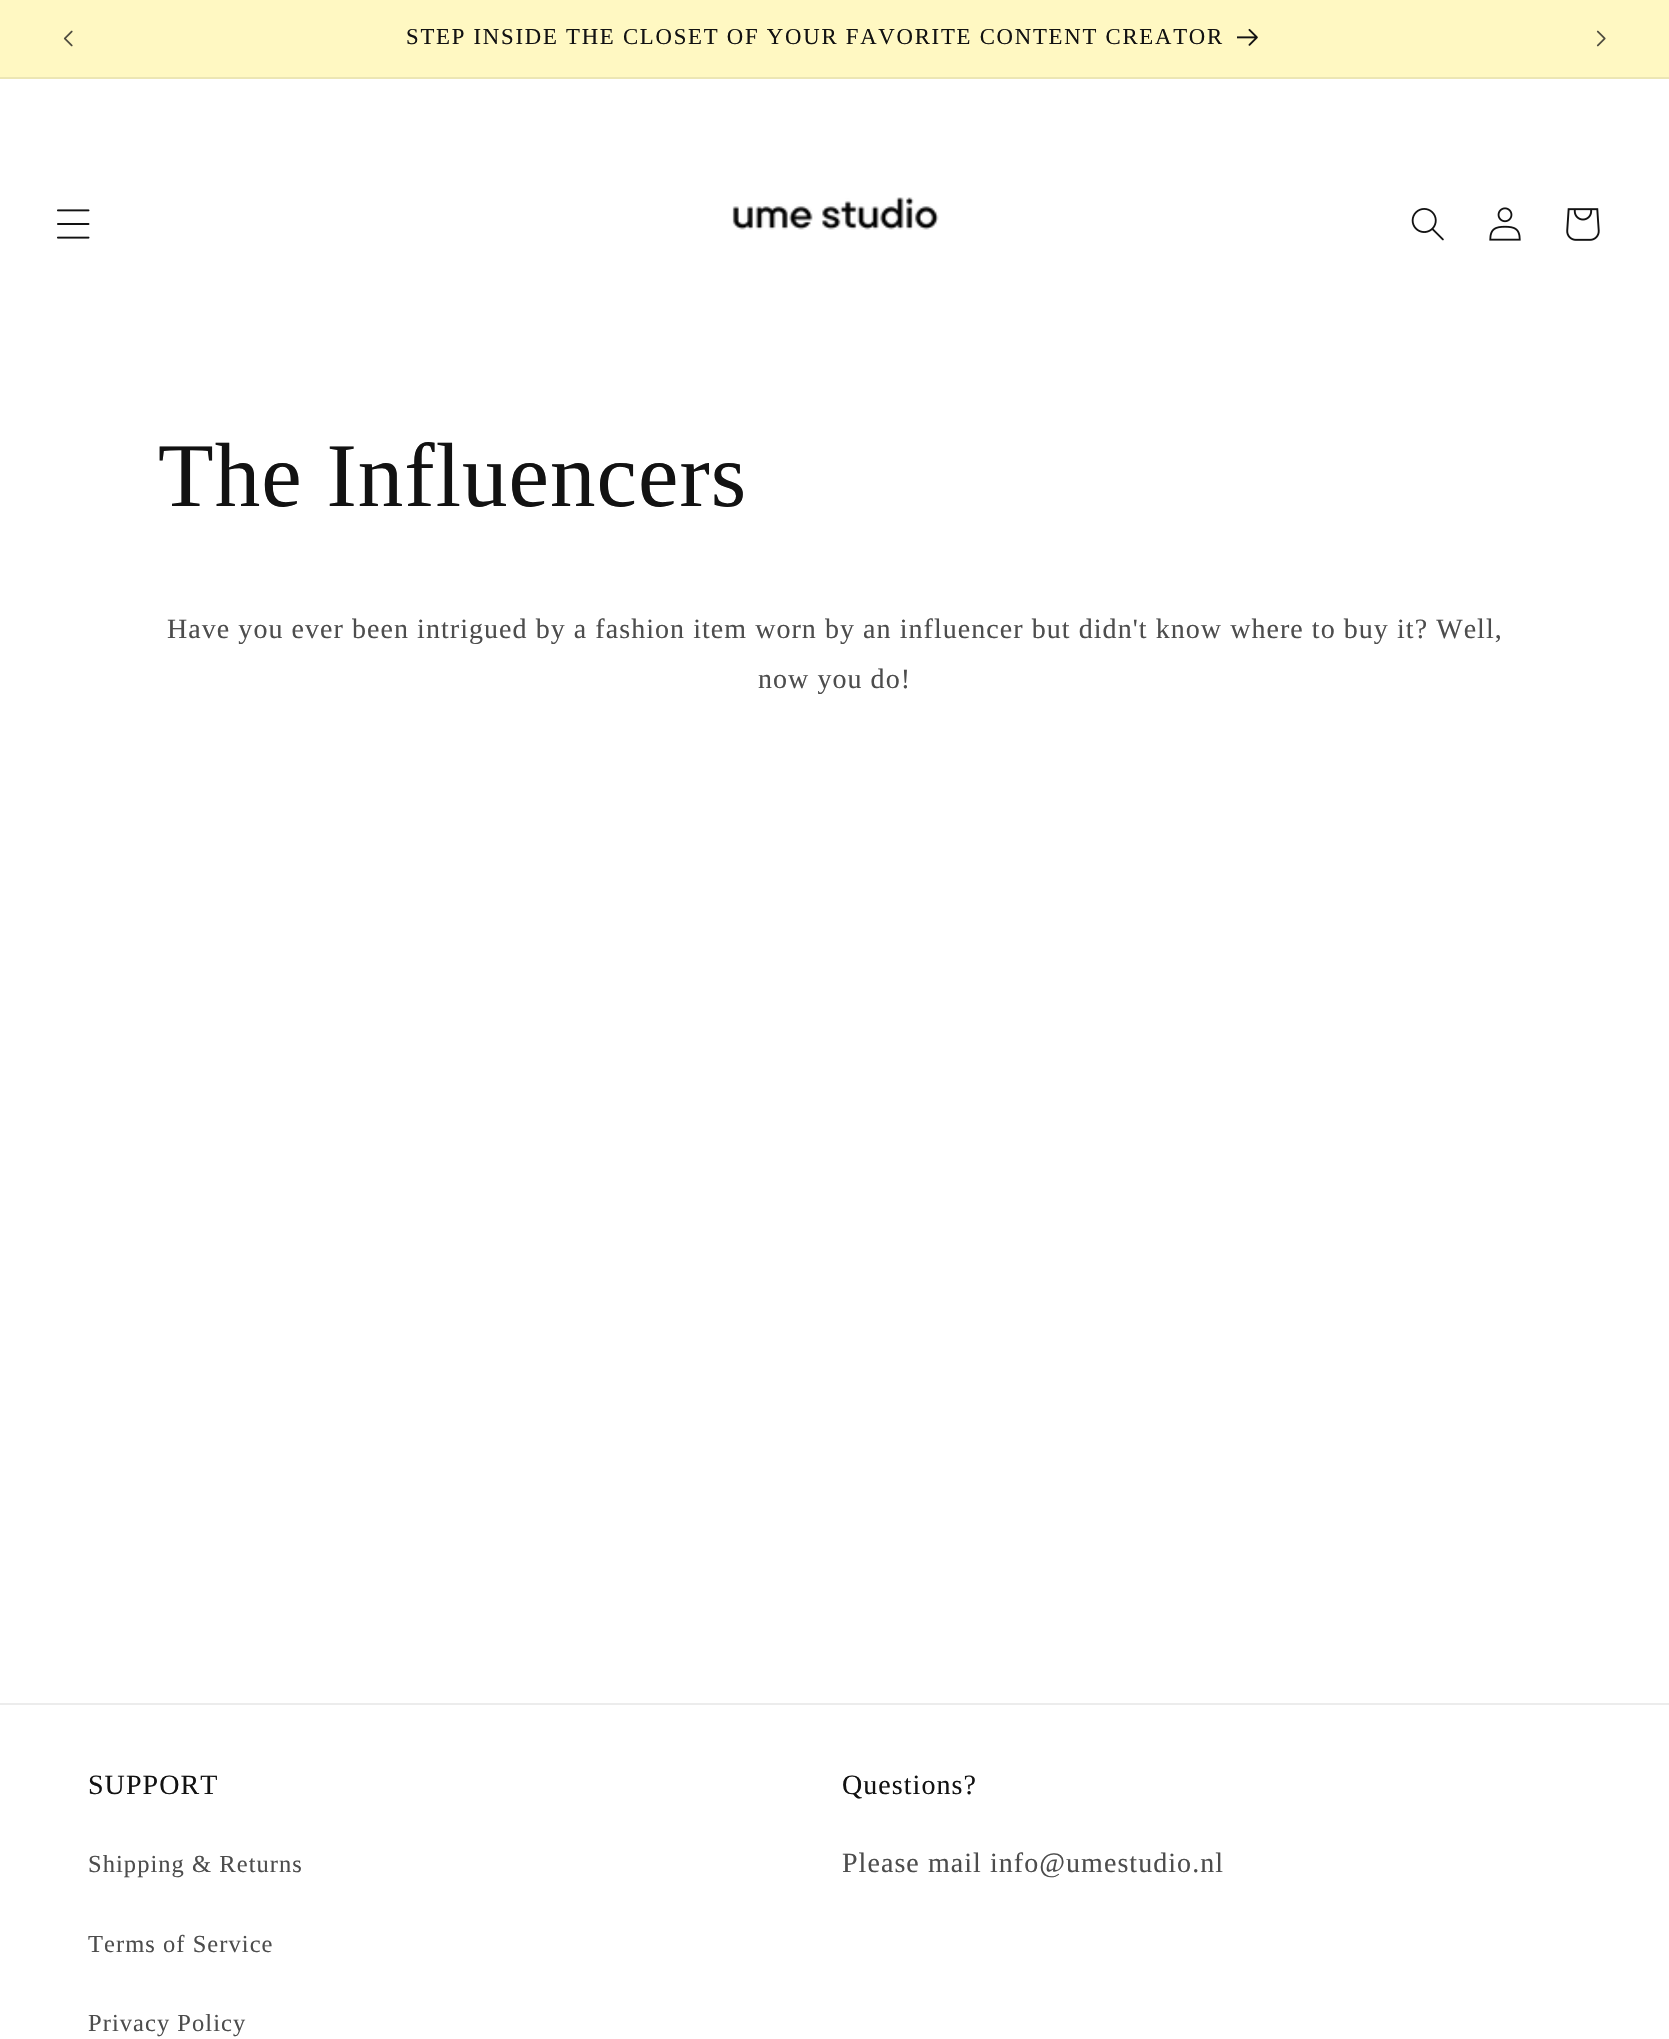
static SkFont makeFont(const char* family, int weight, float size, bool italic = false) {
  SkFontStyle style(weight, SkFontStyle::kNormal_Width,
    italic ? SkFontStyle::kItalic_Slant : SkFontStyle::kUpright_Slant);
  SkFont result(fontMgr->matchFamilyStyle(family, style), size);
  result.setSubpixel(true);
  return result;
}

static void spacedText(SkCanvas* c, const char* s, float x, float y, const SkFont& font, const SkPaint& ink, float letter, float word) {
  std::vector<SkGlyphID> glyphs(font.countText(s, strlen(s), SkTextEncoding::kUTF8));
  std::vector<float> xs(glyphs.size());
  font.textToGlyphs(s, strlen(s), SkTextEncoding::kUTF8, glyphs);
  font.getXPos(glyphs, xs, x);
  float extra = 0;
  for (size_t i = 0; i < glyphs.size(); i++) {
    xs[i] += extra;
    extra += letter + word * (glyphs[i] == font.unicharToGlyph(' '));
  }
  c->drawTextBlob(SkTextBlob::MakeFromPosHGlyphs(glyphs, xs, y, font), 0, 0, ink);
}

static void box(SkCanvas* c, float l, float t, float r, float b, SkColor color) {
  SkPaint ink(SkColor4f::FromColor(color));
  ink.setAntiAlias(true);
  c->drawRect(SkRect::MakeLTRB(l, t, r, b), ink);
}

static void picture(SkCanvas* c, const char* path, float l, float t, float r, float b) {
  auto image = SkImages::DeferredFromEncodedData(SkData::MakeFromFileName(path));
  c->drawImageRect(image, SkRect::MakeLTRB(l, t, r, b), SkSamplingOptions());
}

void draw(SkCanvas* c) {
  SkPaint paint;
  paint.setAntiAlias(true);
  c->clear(0xffffffff);
  box(c, 0, 0, 1669, 77, 0xfffff8c2);
  box(c, 0, 77, 1669, 79, 0xffece6b4);
  picture(c, "img_01.png", 63, 30, 73, 47);
  SkFont face1 = makeFont("Liberation Serif", 400, 22.75f);
  paint.setColor(0xff121212);
  spacedText(c, "STEP INSIDE THE CLOSET OF YOUR FAVORITE CONTENT CREATOR", 406, 44, face1, paint, 1.75f, 0);
  picture(c, "img_02.png", 1237, 28, 1258, 46);
  picture(c, "img_03.png", 1596, 30, 1606, 47);
  picture(c, "img_04.png", 57, 209, 90, 239);
  picture(c, "img_05.png", 732, 197, 939, 230);
  picture(c, "img_06.png", 1411, 208, 1444, 241);
  picture(c, "img_07.png", 1489, 207, 1521, 241);
  picture(c, "img_08.png", 1566, 208, 1600, 241);
  SkFont face2 = makeFont("Liberation Serif", 400, 91);
  spacedText(c, "The Influencers", 158, 506, face2, paint, 1.05f, 0);
  SkFont face3 = makeFont("Liberation Serif", 400, 28);
  paint.setColor(0xff4d4d4d);
  spacedText(c, "Have you ever been intrigued by a fashion item worn by an influencer but didn't know where to buy it? Well,", 167, 638, face3, paint, 1.05f, 0);
  spacedText(c, "now you do!", 758, 688, face3, paint, 1.05f, 0);
  box(c, 0, 1703, 1669, 1705, 0xffececec);
  paint.setColor(0xff121212);
  spacedText(c, "SUPPORT", 88, 1794, face3, paint, 1.05f, 0);
  SkFont face4 = makeFont("Liberation Serif", 400, 24.5f);
  paint.setColor(0xff4d4d4d);
  spacedText(c, "Shipping & Returns", 88, 1872, face4, paint, 1.05f, 0);
  spacedText(c, "Terms of Service", 88, 1952, face4, paint, 1.05f, 0);
  spacedText(c, "Privacy Policy", 88, 2031, face4, paint, 1.05f, 0);
  paint.setColor(0xff121212);
  spacedText(c, "Questions?", 842, 1794, face3, paint, 1.05f, 0);
  paint.setColor(0xff4d4d4d);
  spacedText(c, "Please mail info@umestudio.nl", 842, 1872, face3, paint, 1.05f, 0);
}
